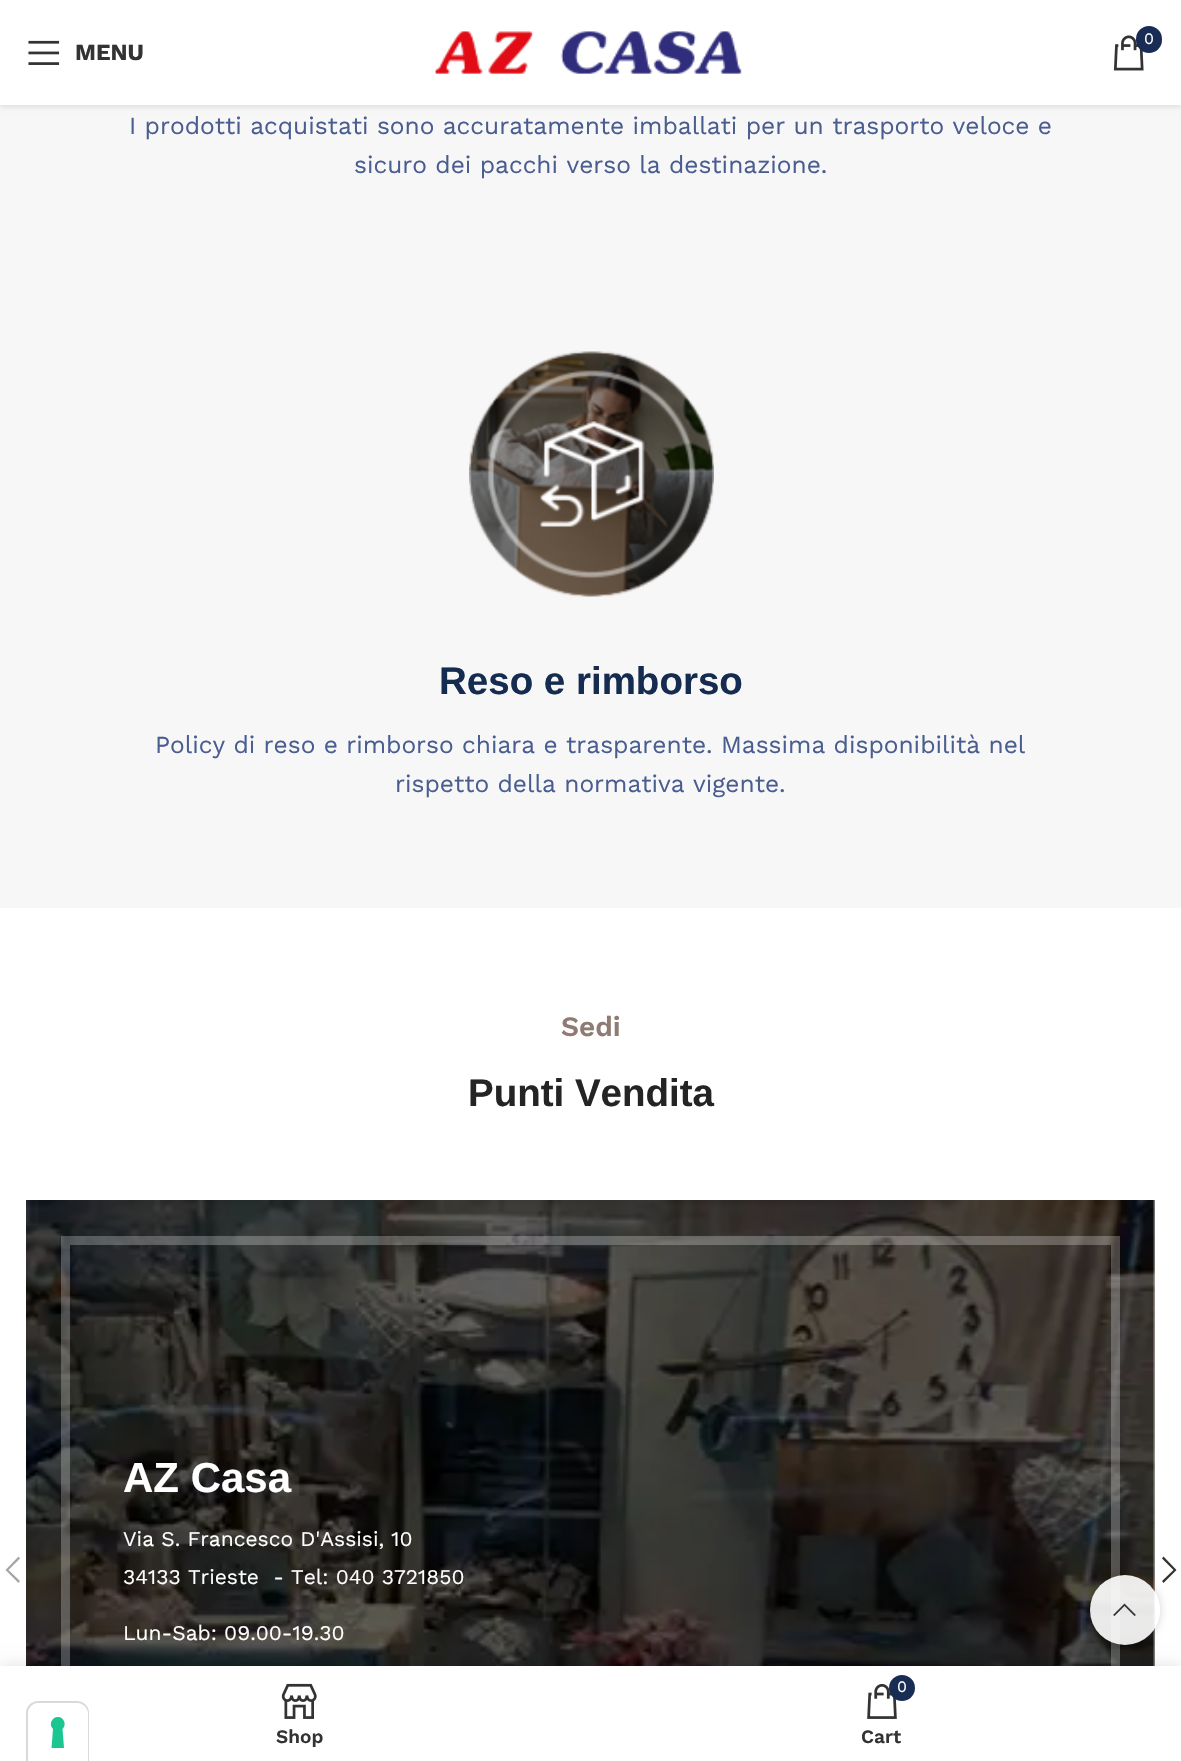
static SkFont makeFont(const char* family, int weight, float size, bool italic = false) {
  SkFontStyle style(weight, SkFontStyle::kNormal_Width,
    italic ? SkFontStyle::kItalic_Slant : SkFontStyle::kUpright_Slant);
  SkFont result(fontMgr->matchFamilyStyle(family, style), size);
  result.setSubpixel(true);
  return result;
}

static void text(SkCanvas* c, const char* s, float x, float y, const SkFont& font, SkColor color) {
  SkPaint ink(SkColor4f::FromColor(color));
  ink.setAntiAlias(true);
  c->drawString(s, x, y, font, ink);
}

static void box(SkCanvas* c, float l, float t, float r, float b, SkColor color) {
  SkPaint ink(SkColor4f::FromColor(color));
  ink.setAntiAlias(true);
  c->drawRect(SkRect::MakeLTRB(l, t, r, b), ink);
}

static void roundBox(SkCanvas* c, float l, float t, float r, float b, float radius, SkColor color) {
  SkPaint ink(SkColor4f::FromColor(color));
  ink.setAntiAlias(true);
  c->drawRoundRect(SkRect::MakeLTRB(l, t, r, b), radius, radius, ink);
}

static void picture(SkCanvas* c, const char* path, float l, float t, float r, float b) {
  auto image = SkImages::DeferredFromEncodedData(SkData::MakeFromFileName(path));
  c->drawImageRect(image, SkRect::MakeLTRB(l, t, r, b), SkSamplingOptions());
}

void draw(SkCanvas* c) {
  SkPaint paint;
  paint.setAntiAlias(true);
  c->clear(0xffffffff);
  box(c, 0, 105, 1181, 908, 0xfff7f7f7);
  paint.setColor(0x1a000000);
  paint.setMaskFilter(SkMaskFilter::MakeBlur(kNormal_SkBlurStyle, 2.5f));
  c->drawRect(SkRect::MakeLTRB(0, 2, 1181, 107), paint);
  paint.setMaskFilter(nullptr);
  box(c, 0, 0, 1181, 105, 0xffffffff);
  picture(c, "img_01.png", 435, 31, 742, 74);
  picture(c, "img_02.png", 1113, 35, 1144, 71);
  roundBox(c, 1136, 26, 1162, 53, 13, 0xff182c54);
  SkFont face1 = makeFont("Work Sans", 400, 16);
  text(c, "0", 1144, 44, face1, 0xffffffff);
  picture(c, "img_03.png", 28, 40, 60, 65);
  SkFont face2 = makeFont("Work Sans", 700, 23);
  text(c, "MENU", 75, 60, face2, 0xff333333);
  SkFont face3 = makeFont("Work Sans", 400, 24.5f);
  text(c, "I prodotti acquistati sono accuratamente imballati per un trasporto veloce e", 129, 134, face3, 0xff495d90);
  text(c, "sicuro dei pacchi verso la destinazione.", 354, 173, face3, 0xff495d90);
  picture(c, "img_04.png", 469, 351, 714, 597);
  SkFont face4 = makeFont("Liberation Sans", 700, 38.5f);
  text(c, "Reso e rimborso", 439, 694, face4, 0xff152b50);
  text(c, "Policy di reso e rimborso chiara e trasparente. Massima disponibilità nel", 155, 753, face3, 0xff495d90);
  text(c, "rispetto della normativa vigente.", 395, 792, face3, 0xff495d90);
  SkFont face5 = makeFont("Work Sans", 600, 28);
  text(c, "Sedi", 561, 1036, face5, 0xff8f7b72);
  text(c, "Punti Vendita", 468, 1106, face4, 0xff242424);
  picture(c, "img_05.png", 26, 1200, 1155, 1666);
  paint.setStyle(SkPaint::kStroke_Style);
  paint.setStrokeWidth(9);
  paint.setColor(0x40ffffff);
  c->drawRect(SkRect::MakeLTRB(65.5f, 1240.5f, 1115.5f, 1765.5f), paint);
  SkFont face6 = makeFont("Liberation Sans", 700, 42);
  text(c, "AZ Casa", 123, 1492, face6, 0xffffffff);
  SkFont face7 = makeFont("Work Sans", 400, 21);
  text(c, "Via S. Francesco D'Assisi, 10", 123, 1546, face7, 0xffffffff);
  text(c, "34133 Trieste  - Tel: 040 3721850", 123, 1584, face7, 0xffffffff);
  text(c, "Lun-Sab: 09.00-19.30", 123, 1640, face7, 0xffffffff);
  paint.setStyle(SkPaint::kFill_Style);
  paint.setColor(0xffa5a5a5);
  c->drawPath(SkPathBuilder().moveTo(20, 1558.5f).lineTo(18.5f, 1556.5f).lineTo(5.5f, 1570).lineTo(18.5f, 1583).lineTo(20, 1581).lineTo(8.5f, 1570).close().detach(), paint);
  paint.setColor(0xff333333);
  c->drawPath(SkPathBuilder().moveTo(1162, 1558.5f).lineTo(1173.5f, 1570).lineTo(1162, 1581).lineTo(1163.5f, 1583).lineTo(1176.5f, 1570).lineTo(1163.5f, 1556.5f).close().detach(), paint);
  c->save();
  c->clipPath(SkPathBuilder(SkPathFillType::kEvenOdd).moveTo(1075, 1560).lineTo(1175, 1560).lineTo(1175, 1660).lineTo(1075, 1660).close().moveTo(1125, 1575).cubicTo(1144.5f, 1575, 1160, 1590.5f, 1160, 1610).cubicTo(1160, 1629.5f, 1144.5f, 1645, 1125, 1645).cubicTo(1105.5f, 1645, 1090, 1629.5f, 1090, 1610).cubicTo(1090, 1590.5f, 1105.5f, 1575, 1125, 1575).close().detach(), true);
  paint.setColor(0x2b000000);
  paint.setMaskFilter(SkMaskFilter::MakeBlur(kNormal_SkBlurStyle, 4.5f));
  c->drawRoundRect(SkRect::MakeLTRB(1090, 1575, 1160, 1645), 35, 35, paint);
  paint.setMaskFilter(nullptr);
  c->restore();
  paint.setColor(0xe6ffffff);
  c->drawCircle(1125, 1610, 35, paint);
  paint.setColor(0xff333333);
  c->drawPath(SkPathBuilder().moveTo(1134.5f, 1616).lineTo(1136, 1615).lineTo(1124.5f, 1603.5f).lineTo(1113, 1615).lineTo(1114.5f, 1616).lineTo(1124.5f, 1606).close().detach(), paint);
  paint.setColor(0x1f000000);
  paint.setMaskFilter(SkMaskFilter::MakeBlur(kNormal_SkBlurStyle, 8));
  c->drawRect(SkRect::MakeLTRB(0, 1666, 1181, 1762), paint);
  paint.setMaskFilter(nullptr);
  box(c, 0, 1666, 1181, 1761, 0xffffffff);
  paint.setStyle(SkPaint::kStroke_Style);
  paint.setStrokeWidth(2);
  paint.setColor(0xffd9d9d9);
  c->drawPath(SkPathBuilder().moveTo(38, 1702).lineTo(77, 1702).cubicTo(83, 1702, 88, 1707, 88, 1713).lineTo(88, 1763).lineTo(27, 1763).lineTo(27, 1713).cubicTo(27, 1707, 32, 1702, 38, 1702).close().detach(), paint);
  paint.setStyle(SkPaint::kFill_Style);
  paint.setColor(0xffffffff);
  c->drawPath(SkPathBuilder().moveTo(39, 1703).lineTo(77, 1703).cubicTo(83, 1703, 88, 1708, 88, 1714).lineTo(88, 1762).lineTo(28, 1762).lineTo(28, 1714).cubicTo(28, 1708, 33, 1703, 39, 1703).close().detach(), paint);
  paint.setColor(0xff1cc691);
  c->drawPath(SkPathBuilder(SkPathFillType::kEvenOdd).moveTo(58, 1717).cubicTo(64, 1717, 67, 1725, 62.5f, 1729).lineTo(64, 1748).lineTo(51.5f, 1748).lineTo(53, 1729).cubicTo(48.5f, 1725, 51.5f, 1717, 58, 1717).close().detach(), paint);
  picture(c, "img_06.png", 281, 1683, 317, 1719);
  SkFont face8 = makeFont("Work Sans", 600, 19);
  text(c, "Shop", 276, 1743, face8, 0xff333333);
  picture(c, "img_07.png", 867, 1684, 897, 1719);
  paint.setColor(0xff182c54);
  c->drawCircle(902, 1688, 13, paint);
  text(c, "0", 897, 1692, face1, 0xffffffff);
  text(c, "Cart", 861, 1743, face8, 0xff333333);
}
